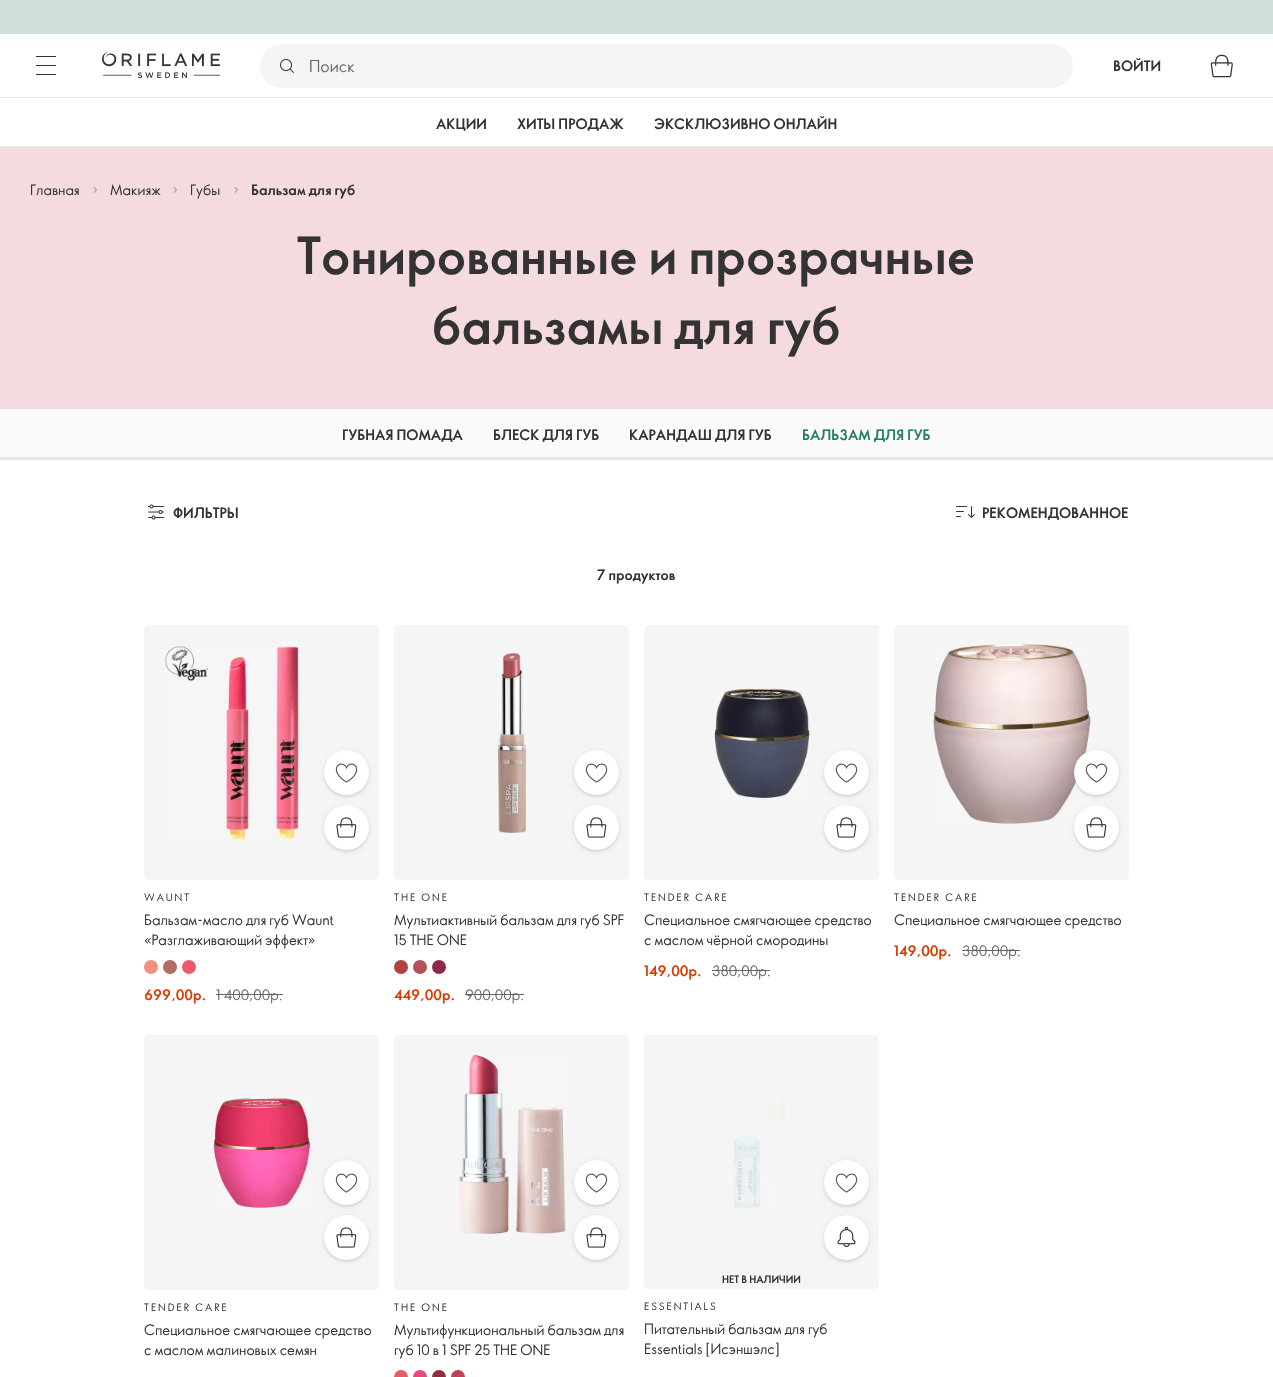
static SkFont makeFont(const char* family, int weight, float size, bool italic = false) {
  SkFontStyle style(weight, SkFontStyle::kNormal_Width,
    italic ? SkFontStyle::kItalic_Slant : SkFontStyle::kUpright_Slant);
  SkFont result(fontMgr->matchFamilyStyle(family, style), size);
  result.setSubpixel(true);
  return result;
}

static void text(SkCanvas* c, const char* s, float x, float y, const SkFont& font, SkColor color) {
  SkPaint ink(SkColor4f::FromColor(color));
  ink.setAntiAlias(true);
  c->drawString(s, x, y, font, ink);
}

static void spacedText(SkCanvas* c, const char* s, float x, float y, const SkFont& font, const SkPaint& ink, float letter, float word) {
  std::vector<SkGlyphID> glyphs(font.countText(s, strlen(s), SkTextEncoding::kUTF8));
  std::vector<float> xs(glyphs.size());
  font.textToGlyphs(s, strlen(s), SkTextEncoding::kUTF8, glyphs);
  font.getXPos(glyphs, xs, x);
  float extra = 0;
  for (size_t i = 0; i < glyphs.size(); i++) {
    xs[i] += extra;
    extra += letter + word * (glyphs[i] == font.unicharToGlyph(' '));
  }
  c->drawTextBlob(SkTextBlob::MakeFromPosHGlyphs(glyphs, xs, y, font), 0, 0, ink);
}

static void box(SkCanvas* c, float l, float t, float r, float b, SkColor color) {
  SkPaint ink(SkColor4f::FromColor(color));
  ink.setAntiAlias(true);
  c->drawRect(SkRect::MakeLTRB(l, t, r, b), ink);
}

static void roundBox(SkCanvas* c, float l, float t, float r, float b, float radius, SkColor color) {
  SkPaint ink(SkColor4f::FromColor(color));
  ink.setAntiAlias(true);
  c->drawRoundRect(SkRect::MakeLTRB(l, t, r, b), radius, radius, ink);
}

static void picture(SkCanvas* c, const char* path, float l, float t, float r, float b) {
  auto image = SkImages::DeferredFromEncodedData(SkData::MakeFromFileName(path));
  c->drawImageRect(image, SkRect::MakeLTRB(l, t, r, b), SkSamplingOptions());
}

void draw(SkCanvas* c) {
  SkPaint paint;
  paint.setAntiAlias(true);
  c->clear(0xffffffff);
  box(c, 0, 97, 1273, 98, 0xffe5e5e5);
  box(c, 0, 0, 1273, 34, 0xffcedfd7);
  box(c, 36, 56, 56, 57, 0xff333333);
  box(c, 36, 65, 56, 66, 0xff333333);
  box(c, 36, 74, 56, 75, 0xff333333);
  picture(c, "img_01.png", 102, 52, 220, 79);
  roundBox(c, 260, 44, 1073, 88, 22, 0xfff5f5f5);
  picture(c, "img_02.png", 280, 59, 294, 73);
  SkFont face1 = makeFont("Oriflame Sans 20", 400, 16);
  text(c, "Поиск", 309, 72, face1, 0xff666666);
  SkFont face2 = makeFont("Oriflame Sans 20", 700, 14);
  text(c, "ВОЙТИ", 1113, 71, face2, 0xff333333);
  picture(c, "img_03.png", 1210, 54, 1233, 78);
  text(c, "АКЦИИ", 436, 129, face2, 0xff333333);
  text(c, "ХИТЫ ПРОДАЖ", 517, 129, face2, 0xff333333);
  text(c, "ЭКСКЛЮЗИВНО ОНЛАЙН", 654, 129, face2, 0xff333333);
  box(c, 0, 146, 1273, 149, 0xffe5e5e5);
  box(c, 0, 149, 1273, 409, 0xfff5dadf);
  SkFont face3 = makeFont("Oriflame Sans 20", 400, 14);
  text(c, "Главная", 30, 195, face3, 0xff333333);
  picture(c, "img_04.png", 93, 187, 97, 193);
  text(c, "Макияж", 110, 195, face3, 0xff333333);
  picture(c, "img_04.png", 173, 187, 177, 193);
  text(c, "Губы", 190, 195, face3, 0xff333333);
  picture(c, "img_04.png", 234, 187, 238, 193);
  text(c, "Бальзам для губ", 251, 195, face2, 0xff333333);
  SkFont face4 = makeFont("Oriflame Sans 20", 700, 50);
  text(c, "Тонированные и прозрачные", 297, 274, face4, 0xff333333);
  text(c, "бальзамы для губ", 432, 344, face4, 0xff333333);
  box(c, 0, 409, 1273, 457, 0xfffafafa);
  text(c, "ГУБНАЯ ПОМАДА", 342, 440, face2, 0xff333333);
  text(c, "БЛЕСК ДЛЯ ГУБ", 493, 440, face2, 0xff333333);
  text(c, "КАРАНДАШ ДЛЯ ГУБ", 629, 440, face2, 0xff333333);
  text(c, "БАЛЬЗАМ ДЛЯ ГУБ", 802, 440, face2, 0xff227c66);
  box(c, 0, 457, 1273, 460, 0xffe5e5e5);
  picture(c, "img_05.png", 148, 504, 164, 520);
  text(c, "ФИЛЬТРЫ", 173, 518, face2, 0xff333333);
  picture(c, "img_06.png", 956, 506, 975, 518);
  text(c, "РЕКОМЕНДОВАННОЕ", 982, 518, face2, 0xff333333);
  text(c, "7 продуктов", 597, 580, face2, 0xff333333);
  paint.setColor(0xfff5f5f5);
  c->drawPath(SkPathBuilder().moveTo(149, 625).lineTo(374, 625).cubicTo(377, 625, 379, 627, 379, 630).lineTo(379, 860).lineTo(144, 860).lineTo(144, 630).cubicTo(144, 627, 146, 625, 149, 625).close().detach(), paint);
  picture(c, "img_07.png", 165, 646, 300, 842);
  paint.setColor(0x14000042);
  paint.setMaskFilter(SkMaskFilter::MakeBlur(kNormal_SkBlurStyle, 2.5f));
  c->drawRoundRect(SkRect::MakeLTRB(324, 751, 369, 796), 22.5f, 22.5f, paint);
  paint.setMaskFilter(nullptr);
  paint.setMaskFilter(SkMaskFilter::MakeBlur(kNormal_SkBlurStyle, 1));
  c->drawRoundRect(SkRect::MakeLTRB(324, 752, 369, 797), 22.5f, 22.5f, paint);
  paint.setMaskFilter(nullptr);
  paint.setColor(0xffffffff);
  c->drawCircle(346.5f, 772.5f, 22.5f, paint);
  picture(c, "img_08.png", 335, 763, 358, 783);
  paint.setColor(0x14000042);
  paint.setMaskFilter(SkMaskFilter::MakeBlur(kNormal_SkBlurStyle, 2.5f));
  c->drawRoundRect(SkRect::MakeLTRB(324, 806, 369, 851), 22.5f, 22.5f, paint);
  paint.setMaskFilter(nullptr);
  paint.setMaskFilter(SkMaskFilter::MakeBlur(kNormal_SkBlurStyle, 1));
  c->drawRoundRect(SkRect::MakeLTRB(324, 807, 369, 852), 22.5f, 22.5f, paint);
  paint.setMaskFilter(nullptr);
  paint.setColor(0xffffffff);
  c->drawCircle(346.5f, 827.5f, 22.5f, paint);
  picture(c, "img_09.png", 336, 817, 357, 838);
  paint.setColor(0xfff5f5f5);
  c->drawPath(SkPathBuilder().moveTo(144, 860).lineTo(379, 860).lineTo(379, 875).cubicTo(379, 878, 377, 880, 374, 880).lineTo(149, 880).cubicTo(146, 880, 144, 878, 144, 875).close().detach(), paint);
  SkFont face5 = makeFont("Oriflame Sans 20", 400, 10);
  paint.setColor(0xff333333);
  spacedText(c, "WAUNT", 144, 901, face5, paint, 2, 0);
  text(c, "Бальзам-масло для губ Waunt", 144, 925, face3, 0xff333333);
  text(c, "«Разглаживающий эффект»", 144, 945, face3, 0xff333333);
  paint.setColor(0xfff19083);
  c->drawCircle(151, 967, 7, paint);
  paint.setColor(0xffb16c63);
  c->drawCircle(170, 967, 7, paint);
  paint.setColor(0xffec5a6f);
  c->drawCircle(189, 967, 7, paint);
  text(c, "699,00p.", 144, 1000, face2, 0xffda3a00);
  text(c, "1 400,00p.", 216, 1000, face3, 0xff666666);
  box(c, 216, 994, 283, 995, 0xff666666);
  paint.setColor(0xfff5f5f5);
  c->drawPath(SkPathBuilder().moveTo(399, 625).lineTo(624, 625).cubicTo(627, 625, 629, 627, 629, 630).lineTo(629, 860).lineTo(394, 860).lineTo(394, 630).cubicTo(394, 627, 396, 625, 399, 625).close().detach(), paint);
  picture(c, "img_10.png", 497, 652, 528, 835);
  paint.setColor(0x14000042);
  paint.setMaskFilter(SkMaskFilter::MakeBlur(kNormal_SkBlurStyle, 2.5f));
  c->drawRoundRect(SkRect::MakeLTRB(574, 751, 619, 796), 22.5f, 22.5f, paint);
  paint.setMaskFilter(nullptr);
  paint.setMaskFilter(SkMaskFilter::MakeBlur(kNormal_SkBlurStyle, 1));
  c->drawRoundRect(SkRect::MakeLTRB(574, 752, 619, 797), 22.5f, 22.5f, paint);
  paint.setMaskFilter(nullptr);
  paint.setColor(0xffffffff);
  c->drawCircle(596.5f, 772.5f, 22.5f, paint);
  picture(c, "img_08.png", 585, 763, 608, 783);
  paint.setColor(0x14000042);
  paint.setMaskFilter(SkMaskFilter::MakeBlur(kNormal_SkBlurStyle, 2.5f));
  c->drawRoundRect(SkRect::MakeLTRB(574, 806, 619, 851), 22.5f, 22.5f, paint);
  paint.setMaskFilter(nullptr);
  paint.setMaskFilter(SkMaskFilter::MakeBlur(kNormal_SkBlurStyle, 1));
  c->drawRoundRect(SkRect::MakeLTRB(574, 807, 619, 852), 22.5f, 22.5f, paint);
  paint.setMaskFilter(nullptr);
  paint.setColor(0xffffffff);
  c->drawCircle(596.5f, 827.5f, 22.5f, paint);
  picture(c, "img_09.png", 586, 817, 607, 838);
  paint.setColor(0xfff5f5f5);
  c->drawPath(SkPathBuilder().moveTo(394, 860).lineTo(629, 860).lineTo(629, 875).cubicTo(629, 878, 627, 880, 624, 880).lineTo(399, 880).cubicTo(396, 880, 394, 878, 394, 875).close().detach(), paint);
  paint.setColor(0xff333333);
  spacedText(c, "THE ONE", 394, 901, face5, paint, 2, 0);
  text(c, "Мультиактивный бальзам для губ SPF", 394, 925, face3, 0xff333333);
  text(c, "15 THE ONE", 394, 945, face3, 0xff333333);
  paint.setColor(0xffb24142);
  c->drawCircle(401, 967, 7, paint);
  paint.setColor(0xffb2535b);
  c->drawCircle(420, 967, 7, paint);
  paint.setColor(0xff8e294b);
  c->drawCircle(439, 967, 7, paint);
  text(c, "449,00p.", 394, 1000, face2, 0xffda3a00);
  text(c, "900,00p.", 465, 1000, face3, 0xff666666);
  box(c, 465, 994, 524, 995, 0xff666666);
  paint.setColor(0xfff5f5f5);
  c->drawPath(SkPathBuilder().moveTo(649, 625).lineTo(874, 625).cubicTo(877, 625, 879, 627, 879, 630).lineTo(879, 860).lineTo(644, 860).lineTo(644, 630).cubicTo(644, 627, 646, 625, 649, 625).close().detach(), paint);
  picture(c, "img_11.png", 714, 688, 810, 799);
  paint.setColor(0x14000042);
  paint.setMaskFilter(SkMaskFilter::MakeBlur(kNormal_SkBlurStyle, 2.5f));
  c->drawRoundRect(SkRect::MakeLTRB(824, 751, 869, 796), 22.5f, 22.5f, paint);
  paint.setMaskFilter(nullptr);
  paint.setMaskFilter(SkMaskFilter::MakeBlur(kNormal_SkBlurStyle, 1));
  c->drawRoundRect(SkRect::MakeLTRB(824, 752, 869, 797), 22.5f, 22.5f, paint);
  paint.setMaskFilter(nullptr);
  paint.setColor(0xffffffff);
  c->drawCircle(846.5f, 772.5f, 22.5f, paint);
  picture(c, "img_08.png", 835, 763, 858, 783);
  paint.setColor(0x14000042);
  paint.setMaskFilter(SkMaskFilter::MakeBlur(kNormal_SkBlurStyle, 2.5f));
  c->drawRoundRect(SkRect::MakeLTRB(824, 806, 869, 851), 22.5f, 22.5f, paint);
  paint.setMaskFilter(nullptr);
  paint.setMaskFilter(SkMaskFilter::MakeBlur(kNormal_SkBlurStyle, 1));
  c->drawRoundRect(SkRect::MakeLTRB(824, 807, 869, 852), 22.5f, 22.5f, paint);
  paint.setMaskFilter(nullptr);
  paint.setColor(0xffffffff);
  c->drawCircle(846.5f, 827.5f, 22.5f, paint);
  picture(c, "img_09.png", 836, 817, 857, 838);
  paint.setColor(0xfff5f5f5);
  c->drawPath(SkPathBuilder().moveTo(644, 860).lineTo(879, 860).lineTo(879, 875).cubicTo(879, 878, 877, 880, 874, 880).lineTo(649, 880).cubicTo(646, 880, 644, 878, 644, 875).close().detach(), paint);
  paint.setColor(0xff333333);
  spacedText(c, "TENDER CARE", 644, 901, face5, paint, 2, 0);
  text(c, "Специальное смягчающее средство", 644, 925, face3, 0xff333333);
  text(c, "с маслом чёрной смородины", 644, 945, face3, 0xff333333);
  text(c, "149,00p.", 644, 976, face2, 0xffda3a00);
  text(c, "380,00p.", 712, 976, face3, 0xff666666);
  box(c, 712, 970, 770, 971, 0xff666666);
  paint.setColor(0xfff5f5f5);
  c->drawPath(SkPathBuilder().moveTo(899, 625).lineTo(1124, 625).cubicTo(1127, 625, 1129, 627, 1129, 630).lineTo(1129, 860).lineTo(894, 860).lineTo(894, 630).cubicTo(894, 627, 896, 625, 899, 625).close().detach(), paint);
  picture(c, "img_12.png", 933, 643, 1092, 825);
  paint.setColor(0x14000042);
  paint.setMaskFilter(SkMaskFilter::MakeBlur(kNormal_SkBlurStyle, 2.5f));
  c->drawRoundRect(SkRect::MakeLTRB(1074, 751, 1119, 796), 22.5f, 22.5f, paint);
  paint.setMaskFilter(nullptr);
  paint.setMaskFilter(SkMaskFilter::MakeBlur(kNormal_SkBlurStyle, 1));
  c->drawRoundRect(SkRect::MakeLTRB(1074, 752, 1119, 797), 22.5f, 22.5f, paint);
  paint.setMaskFilter(nullptr);
  paint.setColor(0xffffffff);
  c->drawCircle(1096.5f, 772.5f, 22.5f, paint);
  picture(c, "img_08.png", 1085, 763, 1108, 783);
  paint.setColor(0x14000042);
  paint.setMaskFilter(SkMaskFilter::MakeBlur(kNormal_SkBlurStyle, 2.5f));
  c->drawRoundRect(SkRect::MakeLTRB(1074, 806, 1119, 851), 22.5f, 22.5f, paint);
  paint.setMaskFilter(nullptr);
  paint.setMaskFilter(SkMaskFilter::MakeBlur(kNormal_SkBlurStyle, 1));
  c->drawRoundRect(SkRect::MakeLTRB(1074, 807, 1119, 852), 22.5f, 22.5f, paint);
  paint.setMaskFilter(nullptr);
  paint.setColor(0xffffffff);
  c->drawCircle(1096.5f, 827.5f, 22.5f, paint);
  picture(c, "img_09.png", 1086, 817, 1107, 838);
  paint.setColor(0xfff5f5f5);
  c->drawPath(SkPathBuilder().moveTo(894, 860).lineTo(1129, 860).lineTo(1129, 875).cubicTo(1129, 878, 1127, 880, 1124, 880).lineTo(899, 880).cubicTo(896, 880, 894, 878, 894, 875).close().detach(), paint);
  paint.setColor(0xff333333);
  spacedText(c, "TENDER CARE", 894, 901, face5, paint, 2, 0);
  text(c, "Специальное смягчающее средство", 894, 925, face3, 0xff333333);
  text(c, "149,00p.", 894, 956, face2, 0xffda3a00);
  text(c, "380,00p.", 962, 956, face3, 0xff666666);
  box(c, 962, 950, 1020, 951, 0xff666666);
  paint.setColor(0xfff5f5f5);
  c->drawPath(SkPathBuilder().moveTo(149, 1035).lineTo(374, 1035).cubicTo(377, 1035, 379, 1037, 379, 1040).lineTo(379, 1270).lineTo(144, 1270).lineTo(144, 1040).cubicTo(144, 1037, 146, 1035, 149, 1035).close().detach(), paint);
  picture(c, "img_13.png", 213, 1096, 311, 1208);
  paint.setColor(0x14000042);
  paint.setMaskFilter(SkMaskFilter::MakeBlur(kNormal_SkBlurStyle, 2.5f));
  c->drawRoundRect(SkRect::MakeLTRB(324, 1161, 369, 1206), 22.5f, 22.5f, paint);
  paint.setMaskFilter(nullptr);
  paint.setMaskFilter(SkMaskFilter::MakeBlur(kNormal_SkBlurStyle, 1));
  c->drawRoundRect(SkRect::MakeLTRB(324, 1162, 369, 1207), 22.5f, 22.5f, paint);
  paint.setMaskFilter(nullptr);
  paint.setColor(0xffffffff);
  c->drawCircle(346.5f, 1182.5f, 22.5f, paint);
  picture(c, "img_08.png", 335, 1173, 358, 1193);
  paint.setColor(0x14000042);
  paint.setMaskFilter(SkMaskFilter::MakeBlur(kNormal_SkBlurStyle, 2.5f));
  c->drawRoundRect(SkRect::MakeLTRB(324, 1216, 369, 1261), 22.5f, 22.5f, paint);
  paint.setMaskFilter(nullptr);
  paint.setMaskFilter(SkMaskFilter::MakeBlur(kNormal_SkBlurStyle, 1));
  c->drawRoundRect(SkRect::MakeLTRB(324, 1217, 369, 1262), 22.5f, 22.5f, paint);
  paint.setMaskFilter(nullptr);
  paint.setColor(0xffffffff);
  c->drawCircle(346.5f, 1237.5f, 22.5f, paint);
  picture(c, "img_09.png", 336, 1227, 357, 1248);
  paint.setColor(0xfff5f5f5);
  c->drawPath(SkPathBuilder().moveTo(144, 1270).lineTo(379, 1270).lineTo(379, 1285).cubicTo(379, 1288, 377, 1290, 374, 1290).lineTo(149, 1290).cubicTo(146, 1290, 144, 1288, 144, 1285).close().detach(), paint);
  paint.setColor(0xff333333);
  spacedText(c, "TENDER CARE", 144, 1311, face5, paint, 2, 0);
  text(c, "Специальное смягчающее средство", 144, 1335, face3, 0xff333333);
  text(c, "с маслом малиновых семян", 144, 1355, face3, 0xff333333);
  paint.setColor(0xfff5f5f5);
  c->drawPath(SkPathBuilder().moveTo(399, 1035).lineTo(624, 1035).cubicTo(627, 1035, 629, 1037, 629, 1040).lineTo(629, 1270).lineTo(394, 1270).lineTo(394, 1040).cubicTo(394, 1037, 396, 1035, 399, 1035).close().detach(), paint);
  picture(c, "img_14.png", 459, 1054, 567, 1236);
  paint.setColor(0x14000042);
  paint.setMaskFilter(SkMaskFilter::MakeBlur(kNormal_SkBlurStyle, 2.5f));
  c->drawRoundRect(SkRect::MakeLTRB(574, 1161, 619, 1206), 22.5f, 22.5f, paint);
  paint.setMaskFilter(nullptr);
  paint.setMaskFilter(SkMaskFilter::MakeBlur(kNormal_SkBlurStyle, 1));
  c->drawRoundRect(SkRect::MakeLTRB(574, 1162, 619, 1207), 22.5f, 22.5f, paint);
  paint.setMaskFilter(nullptr);
  paint.setColor(0xffffffff);
  c->drawCircle(596.5f, 1182.5f, 22.5f, paint);
  picture(c, "img_08.png", 585, 1173, 608, 1193);
  paint.setColor(0x14000042);
  paint.setMaskFilter(SkMaskFilter::MakeBlur(kNormal_SkBlurStyle, 2.5f));
  c->drawRoundRect(SkRect::MakeLTRB(574, 1216, 619, 1261), 22.5f, 22.5f, paint);
  paint.setMaskFilter(nullptr);
  paint.setMaskFilter(SkMaskFilter::MakeBlur(kNormal_SkBlurStyle, 1));
  c->drawRoundRect(SkRect::MakeLTRB(574, 1217, 619, 1262), 22.5f, 22.5f, paint);
  paint.setMaskFilter(nullptr);
  paint.setColor(0xffffffff);
  c->drawCircle(596.5f, 1237.5f, 22.5f, paint);
  picture(c, "img_09.png", 586, 1227, 607, 1248);
  paint.setColor(0xfff5f5f5);
  c->drawPath(SkPathBuilder().moveTo(394, 1270).lineTo(629, 1270).lineTo(629, 1285).cubicTo(629, 1288, 627, 1290, 624, 1290).lineTo(399, 1290).cubicTo(396, 1290, 394, 1288, 394, 1285).close().detach(), paint);
  paint.setColor(0xff333333);
  spacedText(c, "THE ONE", 394, 1311, face5, paint, 2, 0);
  text(c, "Мультифункциональный бальзам для", 394, 1335, face3, 0xff333333);
  text(c, "губ 10 в 1 SPF 25 THE ONE", 394, 1355, face3, 0xff333333);
  paint.setColor(0xffeb5a67);
  c->drawCircle(401, 1377, 7, paint);
  paint.setColor(0xffea4877);
  c->drawCircle(420, 1377, 7, paint);
  paint.setColor(0xff91303c);
  c->drawCircle(439, 1377, 7, paint);
  paint.setColor(0xffc24159);
  c->drawCircle(458, 1377, 7, paint);
  paint.setColor(0xfff5f5f5);
  c->drawPath(SkPathBuilder().moveTo(649, 1035).lineTo(874, 1035).cubicTo(877, 1035, 879, 1037, 879, 1040).lineTo(879, 1270).lineTo(644, 1270).lineTo(644, 1040).cubicTo(644, 1037, 646, 1035, 649, 1035).close().detach(), paint);
  picture(c, "img_15.png", 734, 1099, 785, 1208);
  paint.setColor(0x14000042);
  paint.setMaskFilter(SkMaskFilter::MakeBlur(kNormal_SkBlurStyle, 2.5f));
  c->drawRoundRect(SkRect::MakeLTRB(824, 1161, 869, 1206), 22.5f, 22.5f, paint);
  paint.setMaskFilter(nullptr);
  paint.setMaskFilter(SkMaskFilter::MakeBlur(kNormal_SkBlurStyle, 1));
  c->drawRoundRect(SkRect::MakeLTRB(824, 1162, 869, 1207), 22.5f, 22.5f, paint);
  paint.setMaskFilter(nullptr);
  paint.setColor(0xffffffff);
  c->drawCircle(846.5f, 1182.5f, 22.5f, paint);
  picture(c, "img_08.png", 835, 1173, 858, 1193);
  paint.setColor(0x14000042);
  paint.setMaskFilter(SkMaskFilter::MakeBlur(kNormal_SkBlurStyle, 2.5f));
  c->drawRoundRect(SkRect::MakeLTRB(824, 1216, 869, 1261), 22.5f, 22.5f, paint);
  paint.setMaskFilter(nullptr);
  paint.setMaskFilter(SkMaskFilter::MakeBlur(kNormal_SkBlurStyle, 1));
  c->drawRoundRect(SkRect::MakeLTRB(824, 1217, 869, 1262), 22.5f, 22.5f, paint);
  paint.setMaskFilter(nullptr);
  paint.setColor(0xffffffff);
  c->drawCircle(846.5f, 1237.5f, 22.5f, paint);
  picture(c, "img_16.png", 837, 1226, 856, 1248);
  paint.setColor(0xfff5f5f5);
  c->drawPath(SkPathBuilder().moveTo(644, 1270).lineTo(879, 1270).lineTo(879, 1284).cubicTo(879, 1287, 877, 1289, 874, 1289).lineTo(649, 1289).cubicTo(646, 1289, 644, 1287, 644, 1284).close().detach(), paint);
  SkFont face6 = makeFont("Oriflame Sans 20", 700, 10);
  text(c, "НЕТ В НАЛИЧИИ", 722, 1283, face6, 0xff333333);
  paint.setColor(0xff333333);
  spacedText(c, "ESSENTIALS", 644, 1310, face5, paint, 2, 0);
  text(c, "Питательный бальзам для губ", 644, 1334, face3, 0xff333333);
  text(c, "Essentials [Исэншэлс]", 644, 1354, face3, 0xff333333);
}
